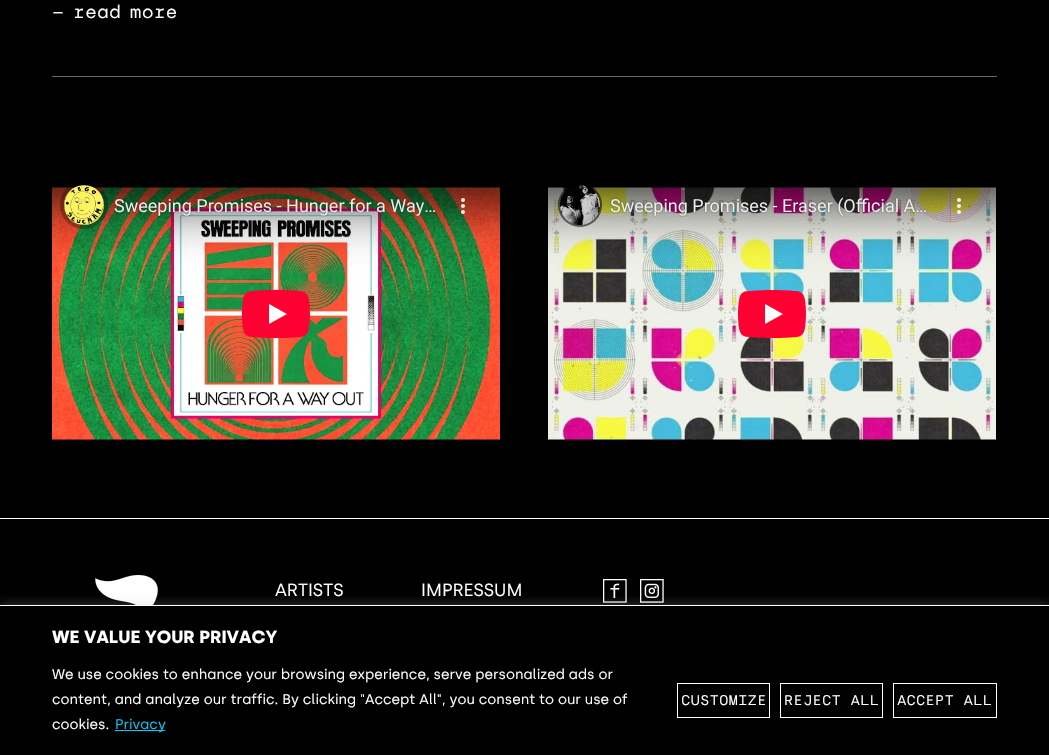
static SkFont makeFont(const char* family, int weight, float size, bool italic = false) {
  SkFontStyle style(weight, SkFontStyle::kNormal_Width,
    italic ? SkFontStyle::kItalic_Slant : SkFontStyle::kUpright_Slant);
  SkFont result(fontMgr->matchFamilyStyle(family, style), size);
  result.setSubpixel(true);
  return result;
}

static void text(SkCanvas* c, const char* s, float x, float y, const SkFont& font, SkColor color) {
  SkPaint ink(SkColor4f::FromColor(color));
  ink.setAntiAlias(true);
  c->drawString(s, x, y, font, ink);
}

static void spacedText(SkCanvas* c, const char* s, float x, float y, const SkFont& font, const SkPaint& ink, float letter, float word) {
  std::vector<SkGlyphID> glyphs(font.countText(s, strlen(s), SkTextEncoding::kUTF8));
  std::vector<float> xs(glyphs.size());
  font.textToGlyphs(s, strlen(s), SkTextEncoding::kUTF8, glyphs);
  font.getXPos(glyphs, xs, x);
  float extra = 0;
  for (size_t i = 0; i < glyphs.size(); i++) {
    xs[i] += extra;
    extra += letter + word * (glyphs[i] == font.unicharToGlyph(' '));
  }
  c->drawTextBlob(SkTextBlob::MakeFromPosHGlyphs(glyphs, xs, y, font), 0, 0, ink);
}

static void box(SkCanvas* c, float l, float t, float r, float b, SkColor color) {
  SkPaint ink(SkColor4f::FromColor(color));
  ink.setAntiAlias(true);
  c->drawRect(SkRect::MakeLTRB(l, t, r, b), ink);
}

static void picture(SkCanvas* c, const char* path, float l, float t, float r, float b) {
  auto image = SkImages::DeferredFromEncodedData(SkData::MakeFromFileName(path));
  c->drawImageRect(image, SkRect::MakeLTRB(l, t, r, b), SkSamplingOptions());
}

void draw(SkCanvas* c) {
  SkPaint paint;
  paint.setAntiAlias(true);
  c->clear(0xff000000);
  SkFont face1 = makeFont("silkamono", 400, 17.6f);
  paint.setColor(0xffffffff);
  spacedText(c, "– read more", 52, 18, face1, paint, 0, -3);
  box(c, 52, 76, 997, 77, 0xff646464);
  picture(c, "img_01.png", 52, 185, 500, 443);
  picture(c, "img_02.png", 548, 184, 996, 448);
  box(c, 0, 518, 1049, 519, 0xffffffff);
  picture(c, "img_03.png", 95, 575, 158, 605);
  SkFont face2 = makeFont("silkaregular", 400, 17.6f);
  text(c, "ARTISTS", 275, 596, face2, 0xffffffff);
  text(c, "IMPRESSUM", 421, 596, face2, 0xffffffff);
  picture(c, "img_04.png", 603, 579, 627, 603);
  picture(c, "img_05.png", 640, 579, 664, 603);
  paint.setColor(0x4dacabab);
  paint.setMaskFilter(SkMaskFilter::MakeBlur(kNormal_SkBlurStyle, 5));
  c->drawRect(SkRect::MakeLTRB(0, 604, 1049, 754), paint);
  paint.setMaskFilter(nullptr);
  box(c, 0, 606, 1049, 755, 0xff000000);
  box(c, 0, 605, 1049, 606, 0xffffffff);
  SkFont face3 = makeFont("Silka", 700, 17.6f);
  text(c, "WE VALUE YOUR PRIVACY", 52, 643, face3, 0xffffffff);
  SkFont face4 = makeFont("silkaregular", 400, 14);
  text(c, "We use cookies to enhance your browsing experience, serve personalized ads or", 52, 679, face4, 0xffffffff);
  text(c, "content, and analyze our traffic. By clicking \"Accept All\", you consent to our use of", 52, 704, face4, 0xffffffff);
  text(c, "cookies.", 52, 729, face4, 0xffffffff);
  box(c, 115, 730, 165, 731, 0xff00ccff);
  text(c, "Privacy", 115, 729, face4, 0xff00ccff);
  paint.setStyle(SkPaint::kStroke_Style);
  paint.setStrokeWidth(1);
  paint.setColor(0xffffffff);
  c->drawRect(SkRect::MakeLTRB(677.5f, 683.5f, 769.5f, 717.5f), paint);
  SkFont face5 = makeFont("silkamono", 400, 14);
  text(c, "CUSTOMIZE", 681, 705, face5, 0xffffffff);
  c->drawRect(SkRect::MakeLTRB(780.5f, 683.5f, 882.5f, 717.5f), paint);
  text(c, "REJECT ALL", 784, 705, face5, 0xffffffff);
  c->drawRect(SkRect::MakeLTRB(893.5f, 683.5f, 996.5f, 717.5f), paint);
  text(c, "ACCEPT ALL", 897, 705, face5, 0xffffffff);
}
